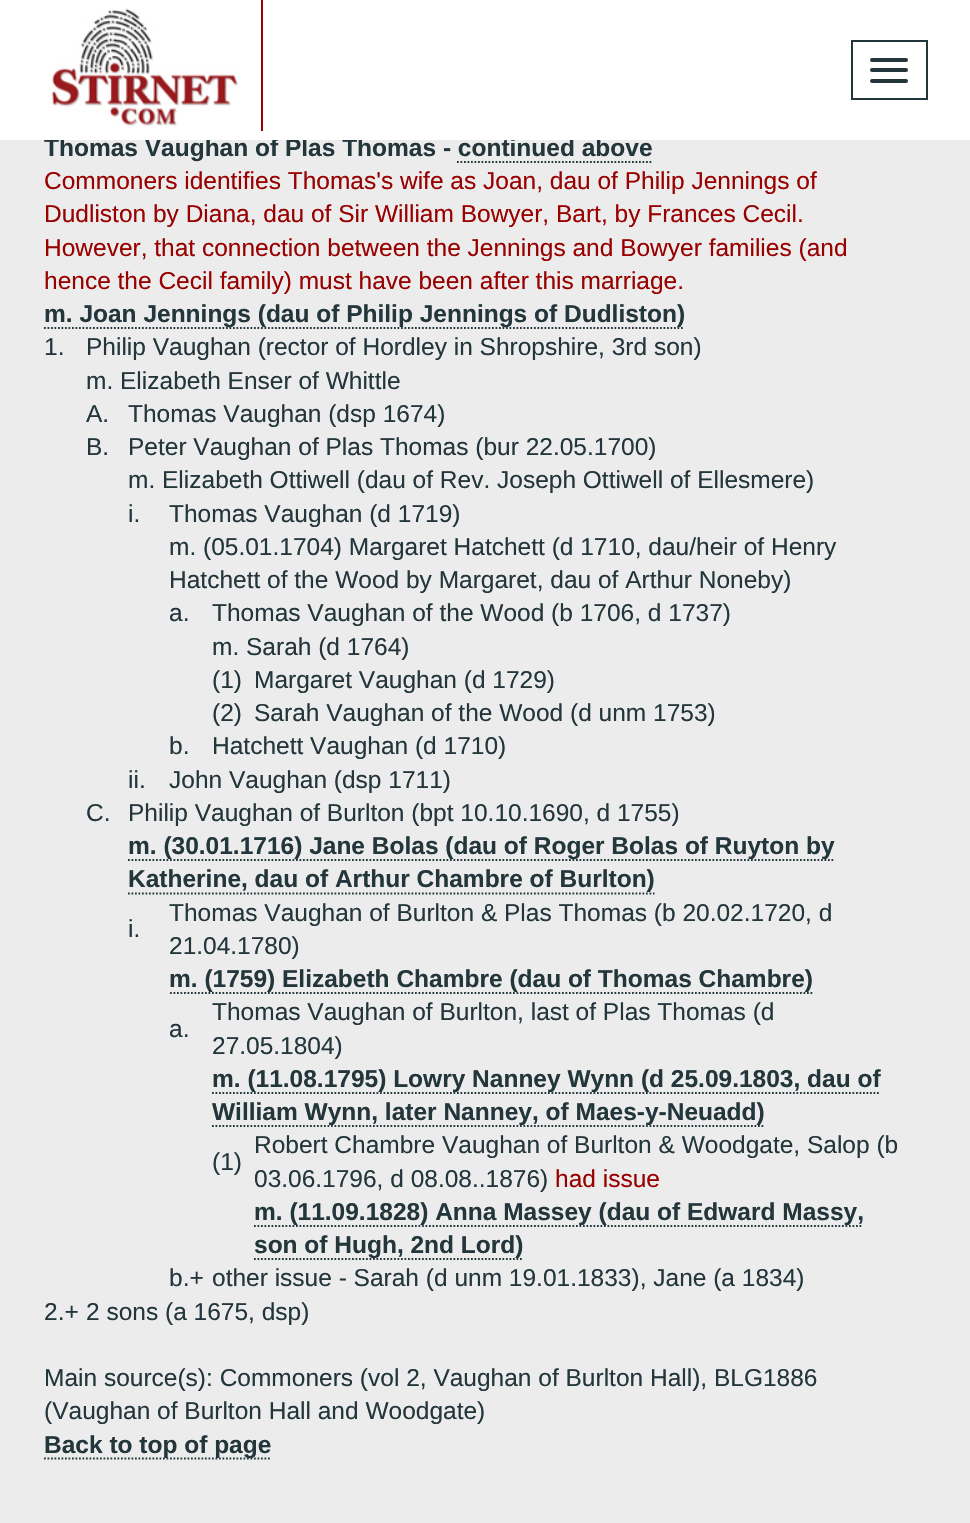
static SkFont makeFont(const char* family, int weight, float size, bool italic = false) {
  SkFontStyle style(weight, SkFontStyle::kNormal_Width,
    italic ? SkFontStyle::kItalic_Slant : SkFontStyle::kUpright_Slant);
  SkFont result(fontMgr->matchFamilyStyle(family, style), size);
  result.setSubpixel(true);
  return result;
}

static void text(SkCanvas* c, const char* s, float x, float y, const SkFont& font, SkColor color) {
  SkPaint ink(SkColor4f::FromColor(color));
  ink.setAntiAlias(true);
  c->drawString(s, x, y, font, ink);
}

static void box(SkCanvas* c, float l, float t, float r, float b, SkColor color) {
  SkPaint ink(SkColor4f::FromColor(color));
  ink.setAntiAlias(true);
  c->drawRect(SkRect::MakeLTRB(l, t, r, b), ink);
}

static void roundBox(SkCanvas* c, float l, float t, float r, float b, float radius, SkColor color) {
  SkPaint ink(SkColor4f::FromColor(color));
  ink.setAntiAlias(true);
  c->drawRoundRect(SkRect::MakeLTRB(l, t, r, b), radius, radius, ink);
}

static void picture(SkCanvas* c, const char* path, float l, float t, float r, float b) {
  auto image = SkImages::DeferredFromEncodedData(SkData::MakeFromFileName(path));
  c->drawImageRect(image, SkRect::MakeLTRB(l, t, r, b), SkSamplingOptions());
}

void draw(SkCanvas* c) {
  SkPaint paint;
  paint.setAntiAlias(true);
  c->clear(0xffececec);
  SkFont face1 = makeFont("Liberation Sans", 700, 24.5f);
  text(c, "Thomas Vaughan of Plas Thomas - continued above", 44, 156, face1, 0xff23363b);
  box(c, 0, 0, 970, 140, 0xffffffff);
  box(c, 261, 0, 263, 131, 0xff990000);
  picture(c, "img_01.png", 52, 8, 239, 126);
  paint.setStyle(SkPaint::kStroke_Style);
  paint.setStrokeWidth(2);
  paint.setColor(0xff23363b);
  c->drawRect(SkRect::MakeLTRB(852, 41, 927, 99), paint);
  roundBox(c, 870, 58, 908, 62, 2, 0xff23363b);
  roundBox(c, 870, 68, 908, 72, 2, 0xff23363b);
  roundBox(c, 870, 79, 908, 83, 2, 0xff23363b);
  paint.setStrokeWidth(1.8f);
  paint.setPathEffect(SkDashPathEffect::Make({{1.75f, 1.75f}}, 0));
  c->drawPath(SkPathBuilder().moveTo(457, 162).lineTo(653, 162).detach(), paint);
  paint.setPathEffect(nullptr);
  SkFont face2 = makeFont("Liberation Sans", 400, 24.5f);
  text(c, "Commoners identifies Thomas's wife as Joan, dau of Philip Jennings of", 44, 189, face2, 0xff990000);
  text(c, "Dudliston by Diana, dau of Sir William Bowyer, Bart, by Frances Cecil.", 44, 222, face2, 0xff990000);
  text(c, "However, that connection between the Jennings and Bowyer families (and", 44, 256, face2, 0xff990000);
  text(c, "hence the Cecil family) must have been after this marriage.", 44, 289, face2, 0xff990000);
  paint.setPathEffect(SkDashPathEffect::Make({{1.75f, 1.75f}}, 0));
  c->drawPath(SkPathBuilder().moveTo(44, 328).lineTo(684, 328).detach(), paint);
  paint.setPathEffect(nullptr);
  text(c, "m. Joan Jennings (dau of Philip Jennings of Dudliston)", 44, 322, face1, 0xff23363b);
  text(c, "1.", 44, 355, face2, 0xff23363b);
  text(c, "Philip Vaughan (rector of Hordley in Shropshire, 3rd son)", 86, 355, face2, 0xff23363b);
  text(c, "m. Elizabeth Enser of Whittle", 86, 389, face2, 0xff23363b);
  text(c, "A.", 86, 422, face2, 0xff23363b);
  text(c, "Thomas Vaughan (dsp 1674)", 128, 422, face2, 0xff23363b);
  text(c, "B.", 86, 455, face2, 0xff23363b);
  text(c, "Peter Vaughan of Plas Thomas (bur 22.05.1700)", 128, 455, face2, 0xff23363b);
  text(c, "m. Elizabeth Ottiwell (dau of Rev. Joseph Ottiwell of Ellesmere)", 128, 488, face2, 0xff23363b);
  text(c, "i.", 128, 522, face2, 0xff23363b);
  text(c, "Thomas Vaughan (d 1719)", 169, 522, face2, 0xff23363b);
  text(c, "m. (05.01.1704) Margaret Hatchett (d 1710, dau/heir of Henry", 169, 555, face2, 0xff23363b);
  text(c, "Hatchett of the Wood by Margaret, dau of Arthur Noneby)", 169, 588, face2, 0xff23363b);
  text(c, "a.", 169, 621, face2, 0xff23363b);
  text(c, "Thomas Vaughan of the Wood (b 1706, d 1737)", 212, 621, face2, 0xff23363b);
  text(c, "m. Sarah (d 1764)", 212, 655, face2, 0xff23363b);
  text(c, "(1)", 212, 688, face2, 0xff23363b);
  text(c, "Margaret Vaughan (d 1729)", 254, 688, face2, 0xff23363b);
  text(c, "(2)", 212, 721, face2, 0xff23363b);
  text(c, "Sarah Vaughan of the Wood (d unm 1753)", 254, 721, face2, 0xff23363b);
  text(c, "b.", 169, 754, face2, 0xff23363b);
  text(c, "Hatchett Vaughan (d 1710)", 212, 754, face2, 0xff23363b);
  text(c, "ii.", 128, 788, face2, 0xff23363b);
  text(c, "John Vaughan (dsp 1711)", 169, 788, face2, 0xff23363b);
  text(c, "C.", 86, 821, face2, 0xff23363b);
  text(c, "Philip Vaughan of Burlton (bpt 10.10.1690, d 1755)", 128, 821, face2, 0xff23363b);
  paint.setPathEffect(SkDashPathEffect::Make({{1.75f, 1.75f}}, 0));
  c->drawPath(SkPathBuilder().moveTo(128, 860).lineTo(835, 860).detach(), paint);
  paint.setPathEffect(nullptr);
  text(c, "m. (30.01.1716) Jane Bolas (dau of Roger Bolas of Ruyton by", 128, 854, face1, 0xff23363b);
  paint.setPathEffect(SkDashPathEffect::Make({{1.75f, 1.75f}}, 0));
  c->drawPath(SkPathBuilder().moveTo(128, 893.5f).lineTo(654.5f, 893.5f).detach(), paint);
  paint.setPathEffect(nullptr);
  text(c, "Katherine, dau of Arthur Chambre of Burlton)", 128, 887, face1, 0xff23363b);
  text(c, "i.", 128, 937, face2, 0xff23363b);
  text(c, "Thomas Vaughan of Burlton & Plas Thomas (b 20.02.1720, d", 169, 921, face2, 0xff23363b);
  text(c, "21.04.1780)", 169, 954, face2, 0xff23363b);
  paint.setPathEffect(SkDashPathEffect::Make({{1.75f, 1.75f}}, 0));
  c->drawPath(SkPathBuilder().moveTo(170, 993).lineTo(814, 993).detach(), paint);
  paint.setPathEffect(nullptr);
  text(c, "m. (1759) Elizabeth Chambre (dau of Thomas Chambre)", 169, 987, face1, 0xff23363b);
  text(c, "a.", 169, 1037, face2, 0xff23363b);
  text(c, "Thomas Vaughan of Burlton, last of Plas Thomas (d", 212, 1020, face2, 0xff23363b);
  text(c, "27.05.1804)", 212, 1054, face2, 0xff23363b);
  paint.setPathEffect(SkDashPathEffect::Make({{1.75f, 1.75f}}, 0));
  c->drawPath(SkPathBuilder().moveTo(212, 1093).lineTo(880, 1093).detach(), paint);
  paint.setPathEffect(nullptr);
  text(c, "m. (11.08.1795) Lowry Nanney Wynn (d 25.09.1803, dau of", 212, 1087, face1, 0xff23363b);
  paint.setPathEffect(SkDashPathEffect::Make({{1.75f, 1.75f}}, 0));
  c->drawPath(SkPathBuilder().moveTo(212, 1126).lineTo(765, 1126).detach(), paint);
  paint.setPathEffect(nullptr);
  text(c, "William Wynn, later Nanney, of Maes-y-Neuadd)", 212, 1120, face1, 0xff23363b);
  text(c, "(1)", 212, 1170, face2, 0xff23363b);
  text(c, "Robert Chambre Vaughan of Burlton & Woodgate, Salop (b", 254, 1153, face2, 0xff23363b);
  text(c, "03.06.1796, d 08.08..1876)", 254, 1187, face2, 0xff23363b);
  text(c, "had issue", 555, 1187, face2, 0xff990000);
  paint.setPathEffect(SkDashPathEffect::Make({{1.75f, 1.75f}}, 0));
  c->drawPath(SkPathBuilder().moveTo(254, 1226).lineTo(863, 1226).detach(), paint);
  paint.setPathEffect(nullptr);
  text(c, "m. (11.09.1828) Anna Massey (dau of Edward Massy,", 254, 1220, face1, 0xff23363b);
  paint.setPathEffect(SkDashPathEffect::Make({{1.75f, 1.75f}}, 0));
  c->drawPath(SkPathBuilder().moveTo(254, 1259).lineTo(523, 1259).detach(), paint);
  paint.setPathEffect(nullptr);
  text(c, "son of Hugh, 2nd Lord)", 254, 1253, face1, 0xff23363b);
  text(c, "b.+", 169, 1286, face2, 0xff23363b);
  text(c, "other issue - Sarah (d unm 19.01.1833), Jane (a 1834)", 212, 1286, face2, 0xff23363b);
  text(c, "2.+", 44, 1320, face2, 0xff23363b);
  text(c, "2 sons (a 1675, dsp)", 86, 1320, face2, 0xff23363b);
  text(c, "Main source(s): Commoners (vol 2, Vaughan of Burlton Hall), BLG1886", 44, 1386, face2, 0xff23363b);
  text(c, "(Vaughan of Burlton Hall and Woodgate)", 44, 1419, face2, 0xff23363b);
  paint.setPathEffect(SkDashPathEffect::Make({{1.75f, 1.75f}}, 0));
  c->drawPath(SkPathBuilder().moveTo(44, 1458.5f).lineTo(271, 1458.5f).detach(), paint);
  paint.setPathEffect(nullptr);
  text(c, "Back to top of page", 44, 1453, face1, 0xff23363b);
}
